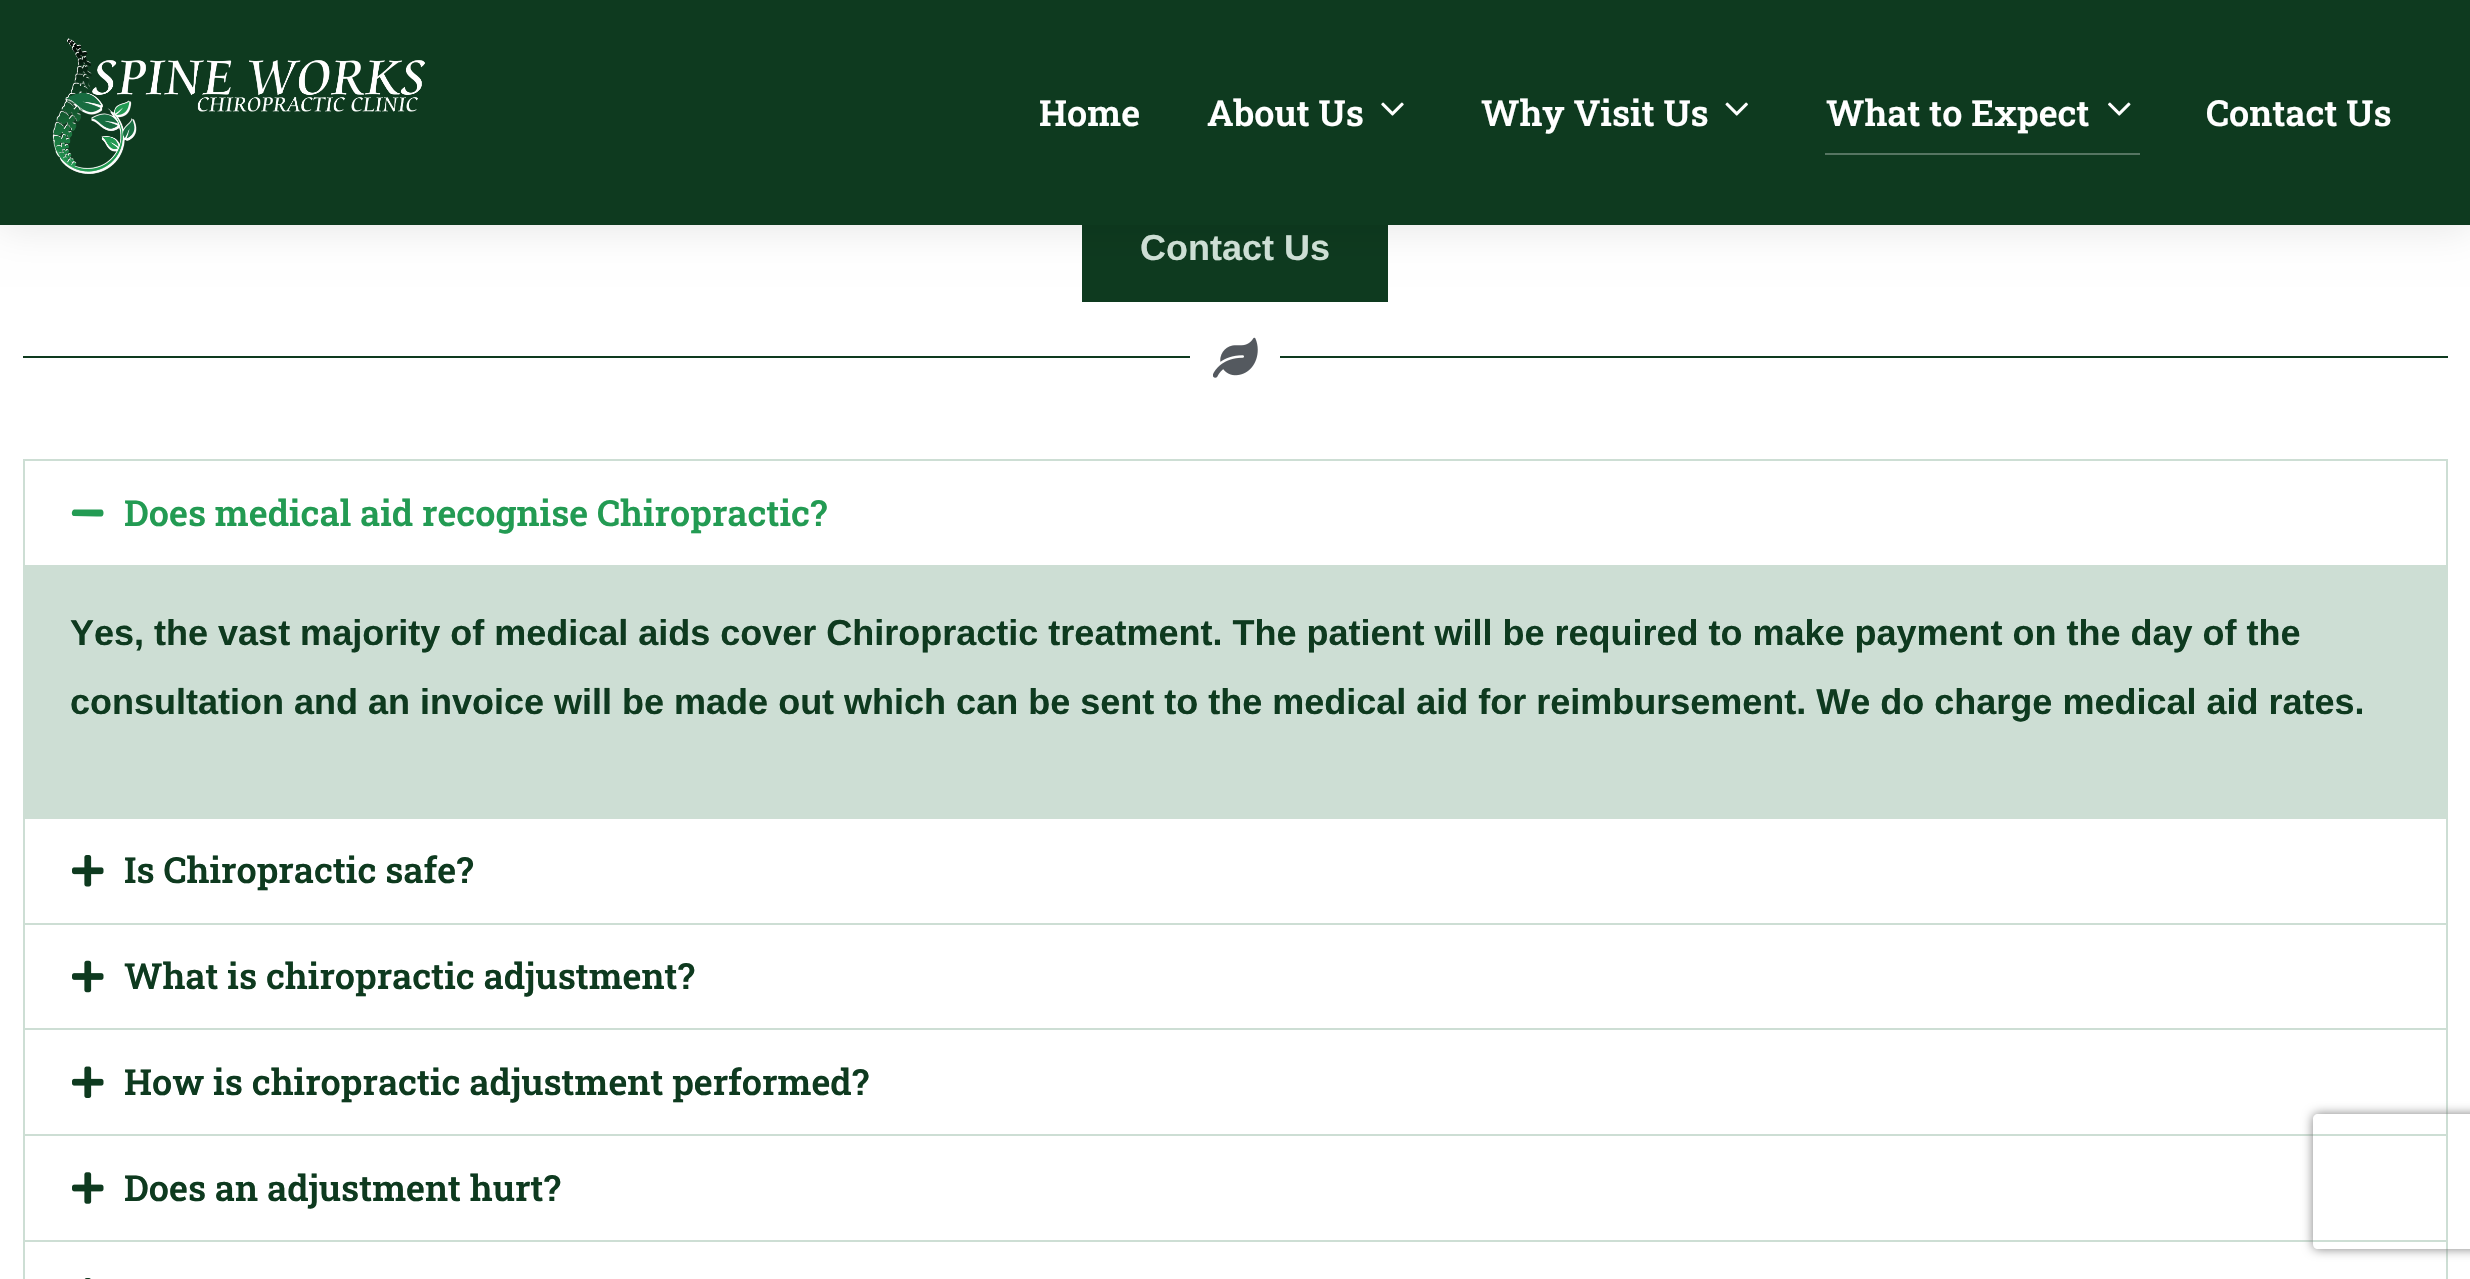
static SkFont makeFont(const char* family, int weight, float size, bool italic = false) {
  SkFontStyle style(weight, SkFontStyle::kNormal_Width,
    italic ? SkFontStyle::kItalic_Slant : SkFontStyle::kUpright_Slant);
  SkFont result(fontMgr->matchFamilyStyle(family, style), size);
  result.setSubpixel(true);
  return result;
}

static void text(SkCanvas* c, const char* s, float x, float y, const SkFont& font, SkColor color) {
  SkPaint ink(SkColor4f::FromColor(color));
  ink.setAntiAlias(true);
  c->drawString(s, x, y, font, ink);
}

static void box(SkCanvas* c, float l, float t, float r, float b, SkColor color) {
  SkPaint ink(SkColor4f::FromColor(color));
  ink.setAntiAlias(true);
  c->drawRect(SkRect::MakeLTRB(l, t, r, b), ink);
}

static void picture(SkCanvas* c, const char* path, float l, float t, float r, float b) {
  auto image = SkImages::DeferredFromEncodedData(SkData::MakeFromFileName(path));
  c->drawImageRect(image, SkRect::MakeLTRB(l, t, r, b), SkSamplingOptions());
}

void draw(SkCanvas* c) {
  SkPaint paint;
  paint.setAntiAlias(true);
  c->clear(0xffffffff);
  box(c, 1082, 225, 1388, 302, 0xff0e3a1f);
  paint.setColor(0x1a000000);
  paint.setMaskFilter(SkMaskFilter::MakeBlur(kNormal_SkBlurStyle, 20));
  c->drawRect(SkRect::MakeLTRB(-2, -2, 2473, 227), paint);
  paint.setMaskFilter(nullptr);
  box(c, 0, 0, 2470, 225, 0xff0e3a1f);
  picture(c, "img_01.png", 52, 38, 425, 174);
  SkFont face1 = makeFont("Roboto Slab", 600, 36);
  text(c, "Home", 1039, 126, face1, 0xffffffff);
  text(c, "About Us", 1207, 126, face1, 0xffffffff);
  picture(c, "img_02.png", 1381, 102, 1404, 116);
  text(c, "Why Visit Us", 1481, 126, face1, 0xffffffff);
  picture(c, "img_03.png", 1725, 102, 1748, 116);
  box(c, 1825, 153, 2140, 155, 0xff567562);
  text(c, "What to Expect", 1826, 126, face1, 0xffffffff);
  picture(c, "img_04.png", 2108, 102, 2131, 116);
  text(c, "Contact Us", 2206, 126, face1, 0xffffffff);
  SkFont face2 = makeFont("Liberation Sans", 700, 36);
  text(c, "Contact Us", 1140, 260, face2, 0xffcdded4);
  box(c, 23, 356, 1190, 358, 0xff0e3a1f);
  picture(c, "img_05.png", 1213, 337, 1258, 378);
  box(c, 1280, 356, 2448, 358, 0xff0e3a1f);
  paint.setStyle(SkPaint::kStroke_Style);
  paint.setStrokeWidth(2);
  paint.setColor(0xffcdded4);
  c->drawRect(SkRect::MakeLTRB(24, 460, 2447, 818), paint);
  paint.setStyle(SkPaint::kFill_Style);
  paint.setColor(0xff239b53);
  c->drawPath(SkPathBuilder().moveTo(101, 509.5f).lineTo(74, 509.5f).cubicTo(71.5f, 510, 71, 515.5f, 73.5f, 516).lineTo(97, 516.5f).cubicTo(100.5f, 516.5f, 103.5f, 517.5f, 103.5f, 513).cubicTo(103.5f, 511.5f, 103, 509.5f, 101, 509.5f).close().detach(), paint);
  text(c, "Does medical aid recognise Chiropractic?", 124, 526, face1, 0xff239b53);
  box(c, 25, 565, 2446, 817, 0xffcdded4);
  text(c, "Yes, the vast majority of medical aids cover Chiropractic treatment. The patient will be required to make payment on the day of the", 70, 645, face2, 0xff0e3a1f);
  text(c, "consultation and an invoice will be made out which can be sent to the medical aid for reimbursement. We do charge medical aid rates.", 70, 714, face2, 0xff0e3a1f);
  box(c, 2446, 819, 2448, 1279, 0xffcdded4);
  box(c, 23, 923, 2448, 925, 0xffcdded4);
  box(c, 23, 819, 25, 925, 0xffcdded4);
  picture(c, "img_06.png", 72, 855, 104, 887);
  text(c, "Is Chiropractic safe?", 124, 883, face1, 0xff0e3a1f);
  box(c, 23, 1028, 2448, 1030, 0xffcdded4);
  box(c, 23, 925, 25, 1031, 0xffcdded4);
  picture(c, "img_07.png", 72, 960, 104, 993);
  text(c, "What is chiropractic adjustment?", 124, 989, face1, 0xff0e3a1f);
  box(c, 23, 1134, 2448, 1136, 0xffcdded4);
  box(c, 23, 1031, 25, 1136, 0xffcdded4);
  picture(c, "img_08.png", 72, 1066, 104, 1098);
  text(c, "How is chiropractic adjustment performed?", 124, 1095, face1, 0xff0e3a1f);
  box(c, 23, 1240, 2448, 1242, 0xffcdded4);
  box(c, 23, 1136, 25, 1279, 0xffcdded4);
  picture(c, "img_09.png", 72, 1172, 104, 1204);
  text(c, "Does an adjustment hurt?", 124, 1201, face1, 0xff0e3a1f);
  picture(c, "img_10.png", 84, 1278, 91, 1279);
  c->save();
  c->clipPath(SkPathBuilder(SkPathFillType::kEvenOdd).moveTo(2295, 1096).lineTo(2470, 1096).lineTo(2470, 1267).lineTo(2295, 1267).close().moveTo(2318, 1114).lineTo(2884, 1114).cubicTo(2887, 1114, 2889, 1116, 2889, 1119).lineTo(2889, 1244).cubicTo(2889, 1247, 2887, 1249, 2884, 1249).lineTo(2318, 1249).cubicTo(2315, 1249, 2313, 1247, 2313, 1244).lineTo(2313, 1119).cubicTo(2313, 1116, 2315, 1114, 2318, 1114).close().detach(), true);
  paint.setColor(0xff808080);
  paint.setMaskFilter(SkMaskFilter::MakeBlur(kNormal_SkBlurStyle, 5.5f));
  c->drawRoundRect(SkRect::MakeLTRB(2313, 1114, 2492, 1249), 5, 5, paint);
  paint.setMaskFilter(nullptr);
  c->restore();
}
